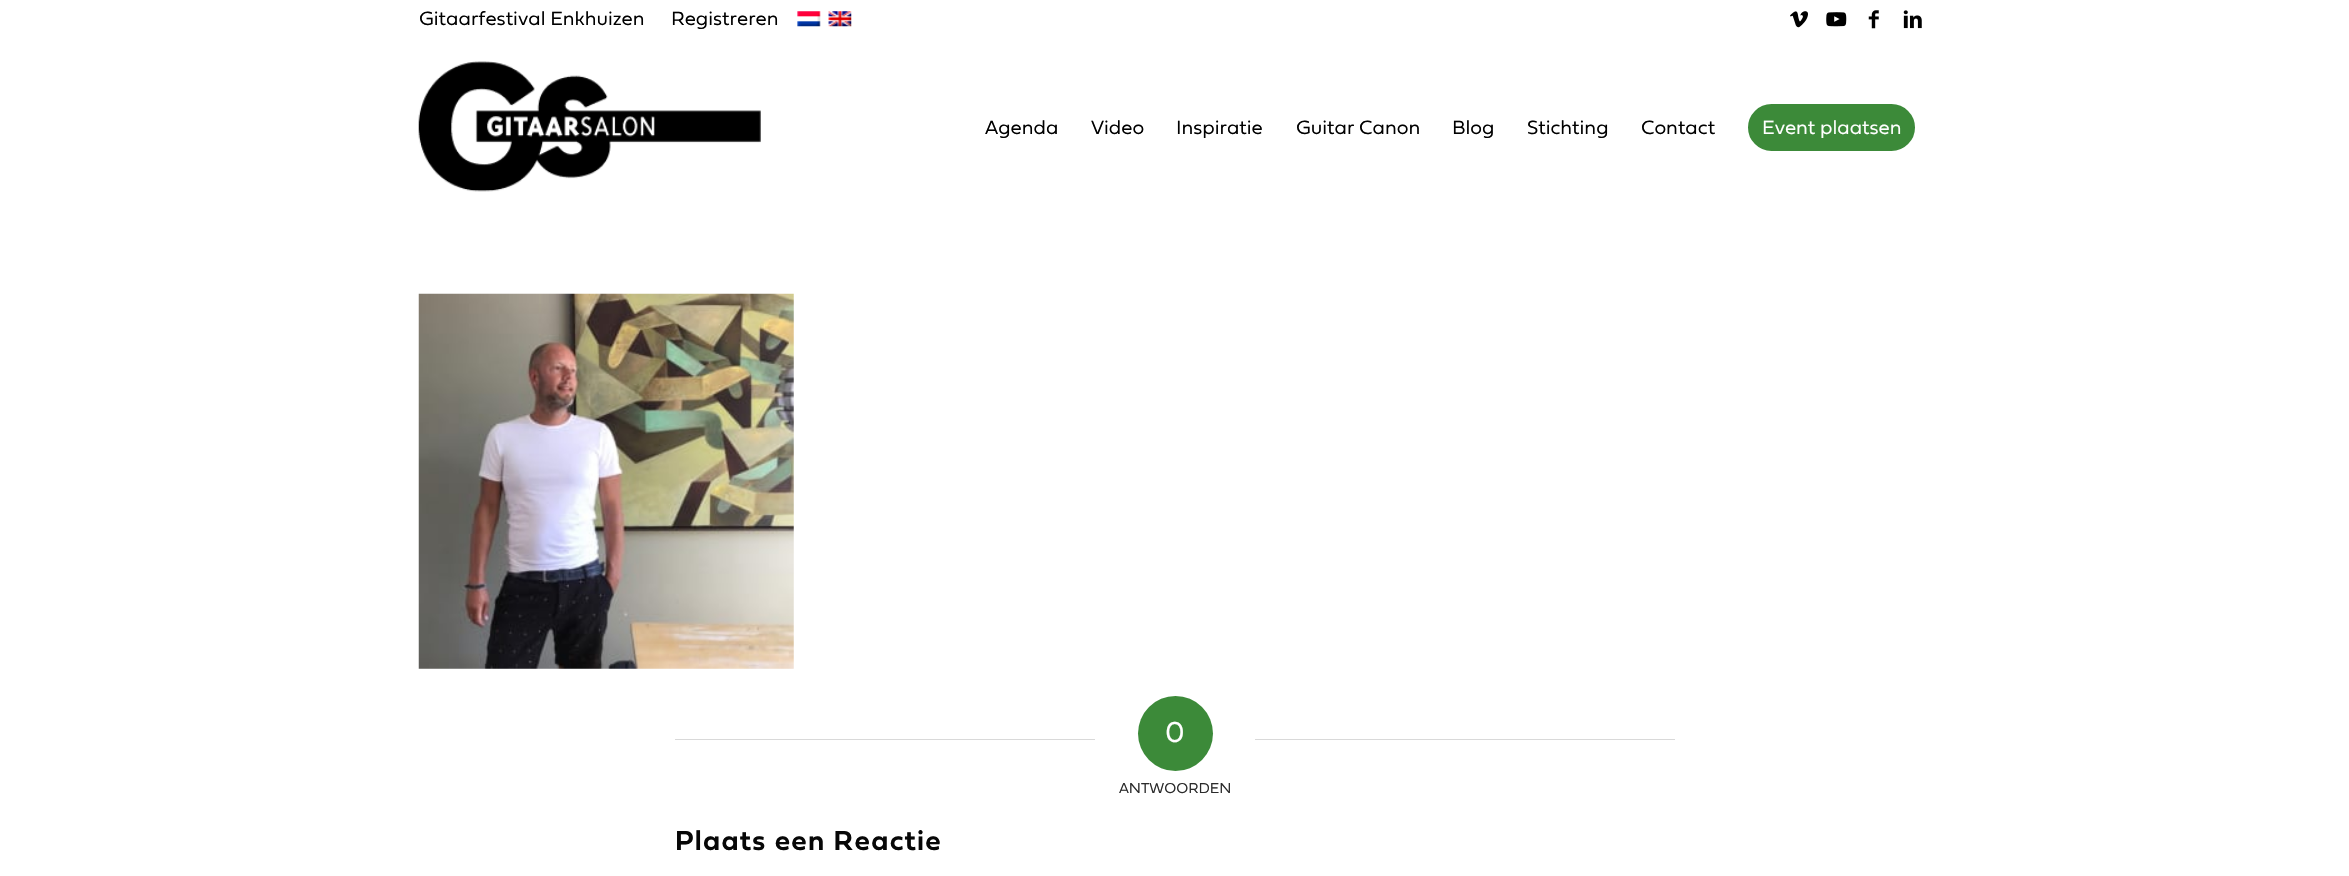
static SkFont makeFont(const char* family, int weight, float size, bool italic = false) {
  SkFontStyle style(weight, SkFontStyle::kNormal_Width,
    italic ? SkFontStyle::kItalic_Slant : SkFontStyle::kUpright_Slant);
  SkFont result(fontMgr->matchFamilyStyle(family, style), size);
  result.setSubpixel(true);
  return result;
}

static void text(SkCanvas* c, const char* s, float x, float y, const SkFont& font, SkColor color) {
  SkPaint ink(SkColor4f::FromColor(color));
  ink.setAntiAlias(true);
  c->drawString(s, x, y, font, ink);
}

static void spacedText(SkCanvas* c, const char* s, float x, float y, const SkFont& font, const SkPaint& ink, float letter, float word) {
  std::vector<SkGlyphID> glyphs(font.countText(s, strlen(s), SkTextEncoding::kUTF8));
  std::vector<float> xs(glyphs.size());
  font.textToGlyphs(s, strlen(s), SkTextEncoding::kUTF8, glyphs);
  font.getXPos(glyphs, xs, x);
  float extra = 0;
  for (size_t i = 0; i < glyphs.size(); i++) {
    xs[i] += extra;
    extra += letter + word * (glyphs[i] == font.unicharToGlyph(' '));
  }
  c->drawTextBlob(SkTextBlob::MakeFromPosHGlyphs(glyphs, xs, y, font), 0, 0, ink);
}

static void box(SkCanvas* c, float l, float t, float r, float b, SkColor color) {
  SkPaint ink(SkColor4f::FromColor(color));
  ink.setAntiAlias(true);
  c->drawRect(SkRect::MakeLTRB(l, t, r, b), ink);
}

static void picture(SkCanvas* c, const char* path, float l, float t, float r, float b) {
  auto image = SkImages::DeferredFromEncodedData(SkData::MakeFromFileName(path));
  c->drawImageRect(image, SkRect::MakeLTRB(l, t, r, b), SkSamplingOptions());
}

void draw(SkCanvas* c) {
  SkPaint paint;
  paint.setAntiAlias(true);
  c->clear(0xffffffff);
  SkFont face1 = makeFont("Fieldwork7", 300, 20);
  text(c, "Gitaarfestival Enkhuizen", 419, 25, face1, 0xff000000);
  text(c, "Registreren", 671, 25, face1, 0xff000000);
  picture(c, "img_01.png", 797, 11, 821, 27);
  picture(c, "img_02.png", 828, 11, 852, 27);
  picture(c, "img_03.png", 1790, 11, 1808, 28);
  picture(c, "img_04.png", 1826, 12, 1847, 27);
  picture(c, "img_05.png", 1868, 10, 1879, 29);
  picture(c, "img_06.png", 1903, 10, 1922, 29);
  picture(c, "img_07.png", 418, 61, 761, 192);
  text(c, "Agenda", 985, 134, face1, 0xff000000);
  text(c, "Video", 1091, 134, face1, 0xff000000);
  text(c, "Inspiratie", 1176, 134, face1, 0xff000000);
  text(c, "Guitar Canon", 1296, 134, face1, 0xff000000);
  text(c, "Blog", 1452, 134, face1, 0xff000000);
  text(c, "Stichting", 1527, 134, face1, 0xff000000);
  text(c, "Contact", 1641, 134, face1, 0xff000000);
  paint.setColor(0xff3c8a39);
  c->drawRoundRect(SkRect::MakeLTRB(1749.5f, 105.5f, 1913.5f, 149.5f), 22, 22, paint);
  paint.setStyle(SkPaint::kStroke_Style);
  paint.setStrokeWidth(3);
  c->drawRoundRect(SkRect::MakeLTRB(1749.5f, 105.5f, 1913.5f, 149.5f), 22, 22, paint);
  text(c, "Event plaatsen", 1762, 134, face1, 0xffffffff);
  picture(c, "img_08.png", 418, 293, 794, 669);
  box(c, 675, 739, 1095, 740, 0xffd9d9d9);
  paint.setStyle(SkPaint::kFill_Style);
  c->drawCircle(1175.5f, 733.5f, 37.5f, paint);
  SkFont face2 = makeFont("Fieldwork7", 300, 30);
  text(c, "0", 1165, 742, face2, 0xffffffff);
  box(c, 1255, 739, 1675, 740, 0xffd9d9d9);
  SkFont face3 = makeFont("Fieldwork7", 300, 15);
  text(c, "ANTWOORDEN", 1119, 793, face3, 0xff2b2b2b);
  SkFont face4 = makeFont("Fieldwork", 600, 28.75f);
  paint.setColor(0xff070707);
  spacedText(c, "Plaats een Reactie", 675, 850, face4, paint, 1.25f, 0);
}
